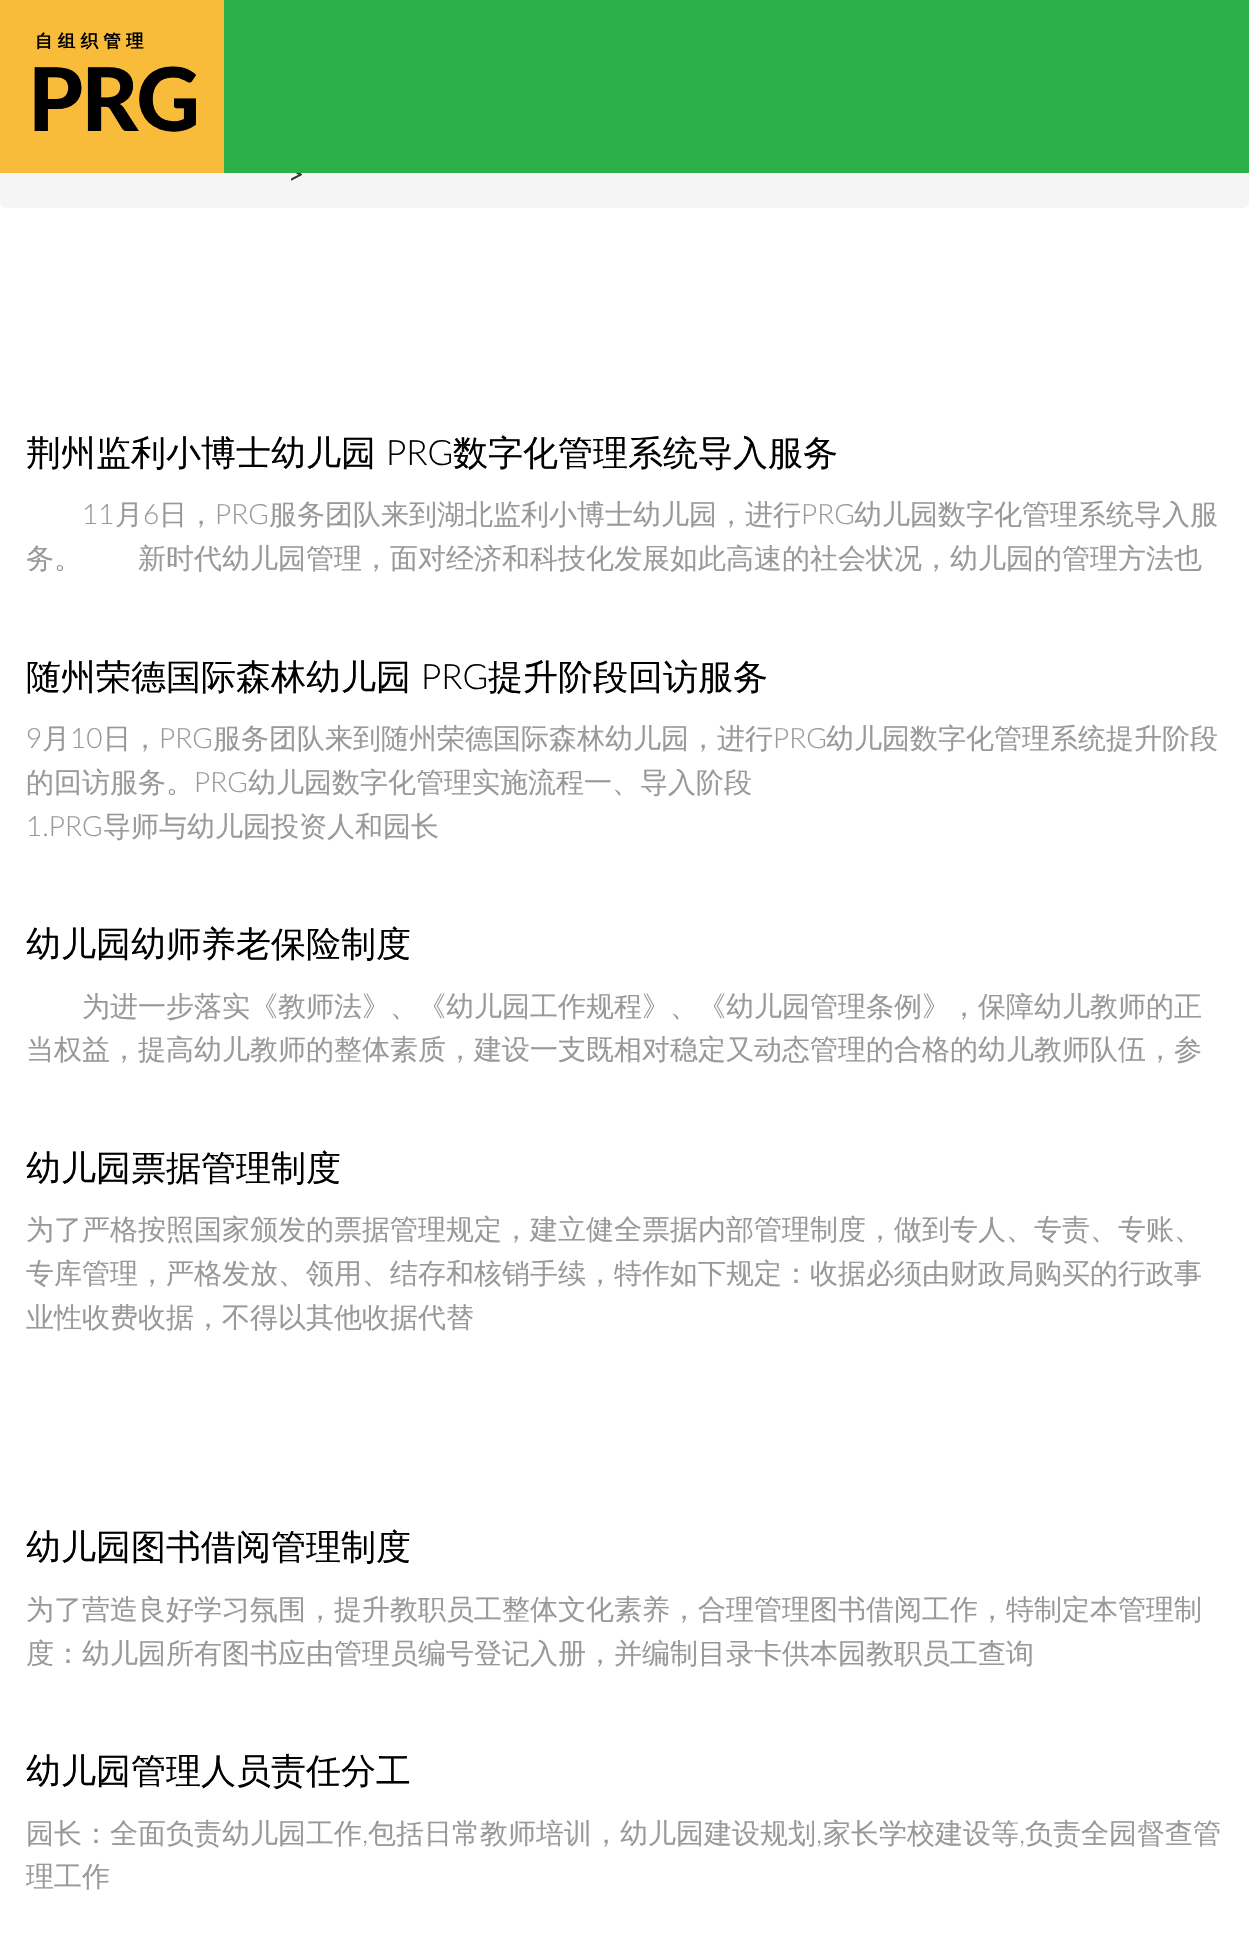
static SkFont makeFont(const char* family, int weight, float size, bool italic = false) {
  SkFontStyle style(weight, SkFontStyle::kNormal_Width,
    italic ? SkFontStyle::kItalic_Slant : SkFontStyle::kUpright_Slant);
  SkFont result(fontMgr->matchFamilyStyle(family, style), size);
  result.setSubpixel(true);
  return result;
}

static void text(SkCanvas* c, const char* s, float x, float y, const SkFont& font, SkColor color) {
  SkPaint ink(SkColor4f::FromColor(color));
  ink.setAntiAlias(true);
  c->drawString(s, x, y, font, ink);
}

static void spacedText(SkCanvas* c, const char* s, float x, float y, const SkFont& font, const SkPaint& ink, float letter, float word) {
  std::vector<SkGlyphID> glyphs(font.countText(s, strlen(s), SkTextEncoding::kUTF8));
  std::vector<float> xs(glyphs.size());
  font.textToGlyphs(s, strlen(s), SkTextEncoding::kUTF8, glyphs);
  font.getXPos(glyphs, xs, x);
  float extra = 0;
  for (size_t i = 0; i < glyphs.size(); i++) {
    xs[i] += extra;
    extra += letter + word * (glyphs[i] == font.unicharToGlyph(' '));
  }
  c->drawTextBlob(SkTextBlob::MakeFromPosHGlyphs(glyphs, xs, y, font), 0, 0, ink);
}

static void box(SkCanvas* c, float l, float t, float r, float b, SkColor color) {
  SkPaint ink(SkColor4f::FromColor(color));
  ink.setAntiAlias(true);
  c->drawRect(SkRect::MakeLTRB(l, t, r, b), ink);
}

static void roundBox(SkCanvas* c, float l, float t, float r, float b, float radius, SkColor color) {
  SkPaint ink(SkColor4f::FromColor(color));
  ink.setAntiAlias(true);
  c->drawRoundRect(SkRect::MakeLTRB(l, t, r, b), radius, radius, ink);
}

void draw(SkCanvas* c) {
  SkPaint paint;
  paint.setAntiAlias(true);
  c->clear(0xffffffff);
  roundBox(c, 0, 140, 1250, 208, 7, 0xfff5f5f5);
  SkFont face1 = makeFont("Lato", 400, 28);
  text(c, ">", 288, 184, face1, 0xff333333);
  box(c, 224, 0, 1249, 173, 0xff2cb149);
  box(c, 0, 0, 224, 173, 0xfff8bc3a);
  SkFont face2 = makeFont("WenQuanYi Zen Hei", 700, 17.5f);
  paint.setColor(0xff000000);
  spacedText(c, "自组织管理", 35, 47, face2, paint, 5.25f, 0);
  SkFont face3 = makeFont("Lato", 900, 88);
  spacedText(c, "PRG", 28, 131, face3, paint, -2, 0);
  SkFont face4 = makeFont("WenQuanYi Zen Hei", 500, 35);
  text(c, "荆州监利小博士幼儿园", 26, 465, face4, 0xff000000);
  SkFont face5 = makeFont("Lato", 300, 35);
  text(c, "PRG", 386, 465, face5, 0xff000000);
  text(c, "数字化管理系统导入服务", 453, 465, face4, 0xff000000);
  SkFont face6 = makeFont("Lato", 300, 28);
  text(c, "11", 82, 524, face6, 0xff999999);
  SkFont face7 = makeFont("WenQuanYi Zen Hei", 500, 28);
  text(c, "月", 115, 524, face7, 0xff999999);
  text(c, "6", 143, 524, face6, 0xff999999);
  text(c, "日，", 159, 524, face7, 0xff999999);
  text(c, "PRG", 215, 524, face6, 0xff999999);
  text(c, "服务团队来到湖北监利小博士幼儿园，进行", 269, 524, face7, 0xff999999);
  text(c, "PRG", 801, 524, face6, 0xff999999);
  text(c, "幼儿园数字化管理系统导入服", 854, 524, face7, 0xff999999);
  text(c, "务。　　新时代幼儿园管理，面对经济和科技化发展如此高速的社会状况，幼儿园的管理方法也", 26, 568, face7, 0xff999999);
  text(c, "随州荣德国际森林幼儿园", 26, 689, face4, 0xff000000);
  text(c, "PRG", 421, 689, face5, 0xff000000);
  text(c, "提升阶段回访服务", 488, 689, face4, 0xff000000);
  text(c, "9", 26, 748, face6, 0xff999999);
  text(c, "月", 42, 748, face7, 0xff999999);
  text(c, "10", 70, 748, face6, 0xff999999);
  text(c, "日，", 103, 748, face7, 0xff999999);
  text(c, "PRG", 159, 748, face6, 0xff999999);
  text(c, "服务团队来到随州荣德国际森林幼儿园，进行", 213, 748, face7, 0xff999999);
  text(c, "PRG", 773, 748, face6, 0xff999999);
  text(c, "幼儿园数字化管理系统提升阶段", 826, 748, face7, 0xff999999);
  text(c, "的回访服务。", 26, 792, face7, 0xff999999);
  text(c, "PRG", 194, 792, face6, 0xff999999);
  text(c, "幼儿园数字化管理实施流程一、导入阶段", 248, 792, face7, 0xff999999);
  text(c, "1.PRG", 26, 836, face6, 0xff999999);
  text(c, "导师与幼儿园投资人和园长", 103, 836, face7, 0xff999999);
  text(c, "幼儿园幼师养老保险制度", 26, 956, face4, 0xff000000);
  text(c, "为进一步落实《教师法》、《幼儿园工作规程》、《幼儿园管理条例》，保障幼儿教师的正", 82, 1016, face7, 0xff999999);
  text(c, "当权益，提高幼儿教师的整体素质，建设一支既相对稳定又动态管理的合格的幼儿教师队伍，参", 26, 1059, face7, 0xff999999);
  text(c, "幼儿园票据管理制度", 26, 1180, face4, 0xff000000);
  text(c, "为了严格按照国家颁发的票据管理规定，建立健全票据内部管理制度，做到专人、专责、专账、", 26, 1239, face7, 0xff999999);
  text(c, "专库管理，严格发放、领用、结存和核销手续，特作如下规定：收据必须由财政局购买的行政事", 26, 1283, face7, 0xff999999);
  text(c, "业性收费收据，不得以其他收据代替", 26, 1327, face7, 0xff999999);
  text(c, "幼儿园图书借阅管理制度", 26, 1559, face4, 0xff000000);
  text(c, "为了营造良好学习氛围，提升教职员工整体文化素养，合理管理图书借阅工作，特制定本管理制", 26, 1619, face7, 0xff999999);
  text(c, "度：幼儿园所有图书应由管理员编号登记入册，并编制目录卡供本园教职员工查询", 26, 1663, face7, 0xff999999);
  text(c, "幼儿园管理人员责任分工", 26, 1783, face4, 0xff000000);
  text(c, "园长：全面负责幼儿园工作", 26, 1843, face7, 0xff999999);
  text(c, ",", 362, 1843, face6, 0xff999999);
  text(c, "包括日常教师培训，幼儿园建设规划", 368, 1843, face7, 0xff999999);
  text(c, ",", 816, 1843, face6, 0xff999999);
  text(c, "家长学校建设等", 823, 1843, face7, 0xff999999);
  text(c, ",", 1019, 1843, face6, 0xff999999);
  text(c, "负责全园督查管", 1025, 1843, face7, 0xff999999);
  text(c, "理工作", 26, 1886, face7, 0xff999999);
}
